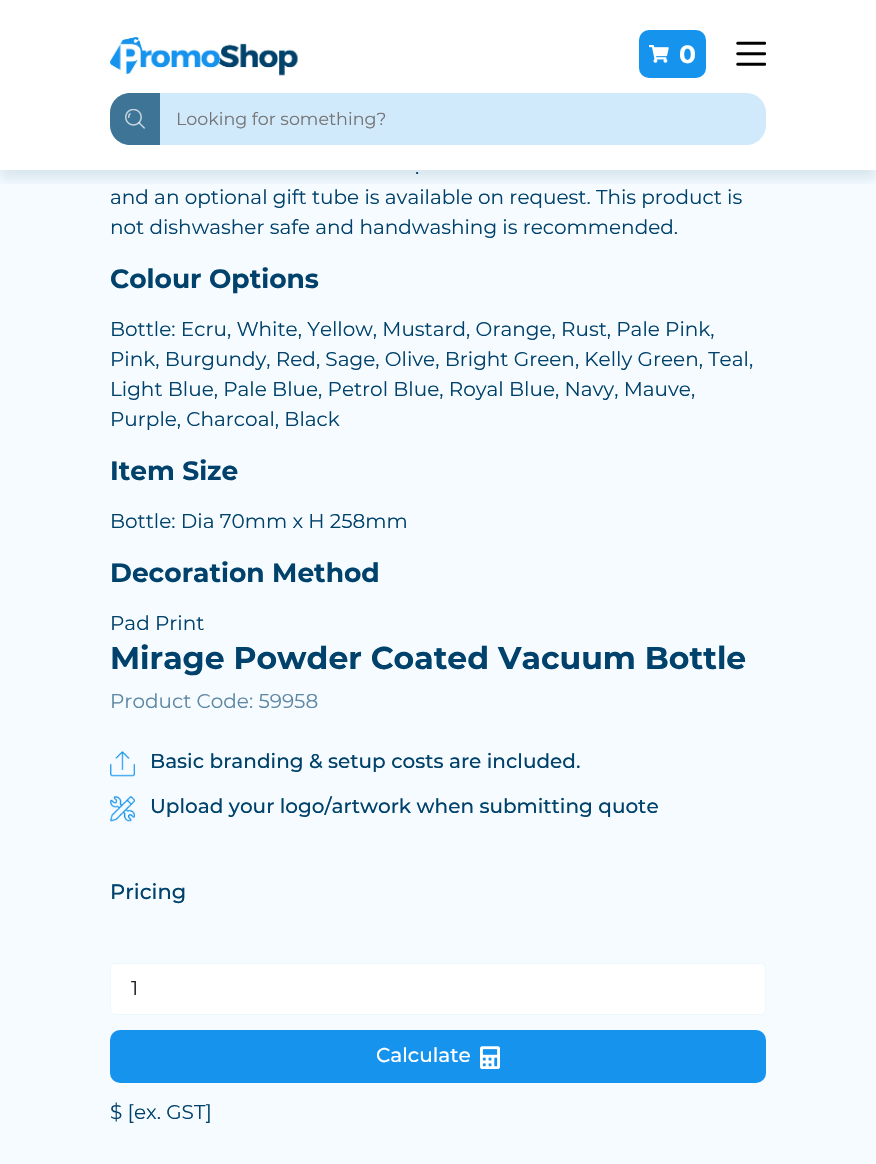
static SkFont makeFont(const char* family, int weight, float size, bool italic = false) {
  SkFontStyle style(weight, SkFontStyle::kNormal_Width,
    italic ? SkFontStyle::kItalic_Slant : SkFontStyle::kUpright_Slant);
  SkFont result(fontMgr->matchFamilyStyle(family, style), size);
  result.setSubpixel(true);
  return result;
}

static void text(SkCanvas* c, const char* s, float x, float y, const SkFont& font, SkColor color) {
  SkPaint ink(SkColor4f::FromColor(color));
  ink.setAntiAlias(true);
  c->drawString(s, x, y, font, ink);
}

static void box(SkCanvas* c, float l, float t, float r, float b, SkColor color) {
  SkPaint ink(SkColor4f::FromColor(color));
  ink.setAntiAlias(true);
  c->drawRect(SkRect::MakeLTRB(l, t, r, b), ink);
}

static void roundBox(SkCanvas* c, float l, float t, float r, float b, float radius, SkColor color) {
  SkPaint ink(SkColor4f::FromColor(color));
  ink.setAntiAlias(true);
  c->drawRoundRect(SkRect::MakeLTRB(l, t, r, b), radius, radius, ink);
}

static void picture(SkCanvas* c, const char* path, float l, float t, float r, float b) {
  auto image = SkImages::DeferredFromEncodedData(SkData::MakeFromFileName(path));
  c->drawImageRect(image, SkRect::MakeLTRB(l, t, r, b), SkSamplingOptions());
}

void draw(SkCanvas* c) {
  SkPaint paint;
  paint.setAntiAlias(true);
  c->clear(0xfff5fbff);
  box(c, 0, 0, 876, 170, 0xffffffff);
  picture(c, "img_01.png", 110, 37, 298, 76);
  roundBox(c, 639, 30, 706, 78, 10, 0xff1693ec);
  picture(c, "img_02.png", 649, 45, 669, 63);
  SkFont face1 = makeFont("Montserrat", 700, 25);
  text(c, "0", 679, 63, face1, 0xffffffff);
  picture(c, "img_03.png", 736, 41, 766, 66);
  c->save();
  c->clipRect(SkRect::MakeLTRB(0, 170, 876, 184));
  paint.setColor(0x1a00426b);
  paint.setMaskFilter(SkMaskFilter::MakeBlur(kNormal_SkBlurStyle, 5));
  c->drawRect(SkRect::MakeLTRB(0, 103, 876, 180), paint);
  paint.setMaskFilter(nullptr);
  c->restore();
  roundBox(c, 110, 93, 766, 145, 20, 0xffd0e9fb);
  paint.setStyle(SkPaint::kStroke_Style);
  paint.setStrokeWidth(1);
  paint.setColor(0x3bd0e9fb);
  c->drawRoundRect(SkRect::MakeLTRB(110.5f, 93.5f, 765.5f, 144.5f), 19.5f, 19.5f, paint);
  paint.setStyle(SkPaint::kFill_Style);
  paint.setColor(0xb300426b);
  c->drawPath(SkPathBuilder().moveTo(130, 93).lineTo(160, 93).lineTo(160, 145).lineTo(130, 145).cubicTo(119, 145, 110, 136, 110, 125).lineTo(110, 113).cubicTo(110, 102, 119, 93, 130, 93).close().detach(), paint);
  picture(c, "img_04.png", 125, 109, 145, 129);
  SkFont face2 = makeFont("Montserrat", 400, 17.5f);
  text(c, "Looking for something?", 176, 125, face2, 0xff757575);
  SkFont face3 = makeFont("Montserrat", 400, 20);
  text(c, ".", 415, 174, face3, 0xff00426b);
  text(c, "and an optional gift tube is available on request. This product is", 110, 204, face3, 0xff00426b);
  text(c, "not dishwasher safe and handwashing is recommended.", 110, 234, face3, 0xff00426b);
  SkFont face4 = makeFont("Montserrat", 700, 26.5f);
  text(c, "Colour Options", 110, 288, face4, 0xff00426b);
  text(c, "Bottle: Ecru, White, Yellow, Mustard, Orange, Rust, Pale Pink,", 110, 336, face3, 0xff00426b);
  text(c, "Pink, Burgundy, Red, Sage, Olive, Bright Green, Kelly Green, Teal,", 110, 366, face3, 0xff00426b);
  text(c, "Light Blue, Pale Blue, Petrol Blue, Royal Blue, Navy, Mauve,", 110, 396, face3, 0xff00426b);
  text(c, "Purple, Charcoal, Black", 110, 426, face3, 0xff00426b);
  text(c, "Item Size", 110, 480, face4, 0xff00426b);
  text(c, "Bottle: Dia 70mm x H 258mm", 110, 528, face3, 0xff00426b);
  text(c, "Decoration Method", 110, 582, face4, 0xff00426b);
  text(c, "Pad Print", 110, 630, face3, 0xff00426b);
  SkFont face5 = makeFont("Montserrat", 700, 31.5f);
  text(c, "Mirage Powder Coated Vacuum Bottle", 110, 669, face5, 0xff00426b);
  text(c, "Product Code: 59958", 110, 708, face3, 0xff5d88a3);
  picture(c, "img_05.png", 110, 751, 135, 777);
  SkFont face6 = makeFont("Montserrat", 500, 20);
  text(c, "Basic branding & setup costs are included.", 150, 768, face6, 0xff00426b);
  picture(c, "img_06.png", 110, 796, 135, 822);
  text(c, "Upload your logo/artwork when submitting quote", 150, 813, face6, 0xff00426b);
  SkFont face7 = makeFont("Montserrat", 500, 21);
  text(c, "Pricing", 110, 899, face7, 0xff00426b);
  paint.setColor(0xffffffff);
  c->drawRoundRect(SkRect::MakeLTRB(110.5f, 963.5f, 765.5f, 1014.5f), 4.5f, 4.5f, paint);
  paint.setStyle(SkPaint::kStroke_Style);
  paint.setColor(0xffecf7fe);
  c->drawRoundRect(SkRect::MakeLTRB(110.5f, 963.5f, 765.5f, 1014.5f), 4.5f, 4.5f, paint);
  text(c, "1", 131, 995, face3, 0xff212529);
  roundBox(c, 110, 1030, 766, 1083, 10, 0xff1693ec);
  text(c, "Calculate", 376, 1062, face6, 0xffffffff);
  picture(c, "img_07.png", 480, 1046, 500, 1069);
  text(c, "$ [ex. GST]", 110, 1119, face3, 0xff00426b);
}
